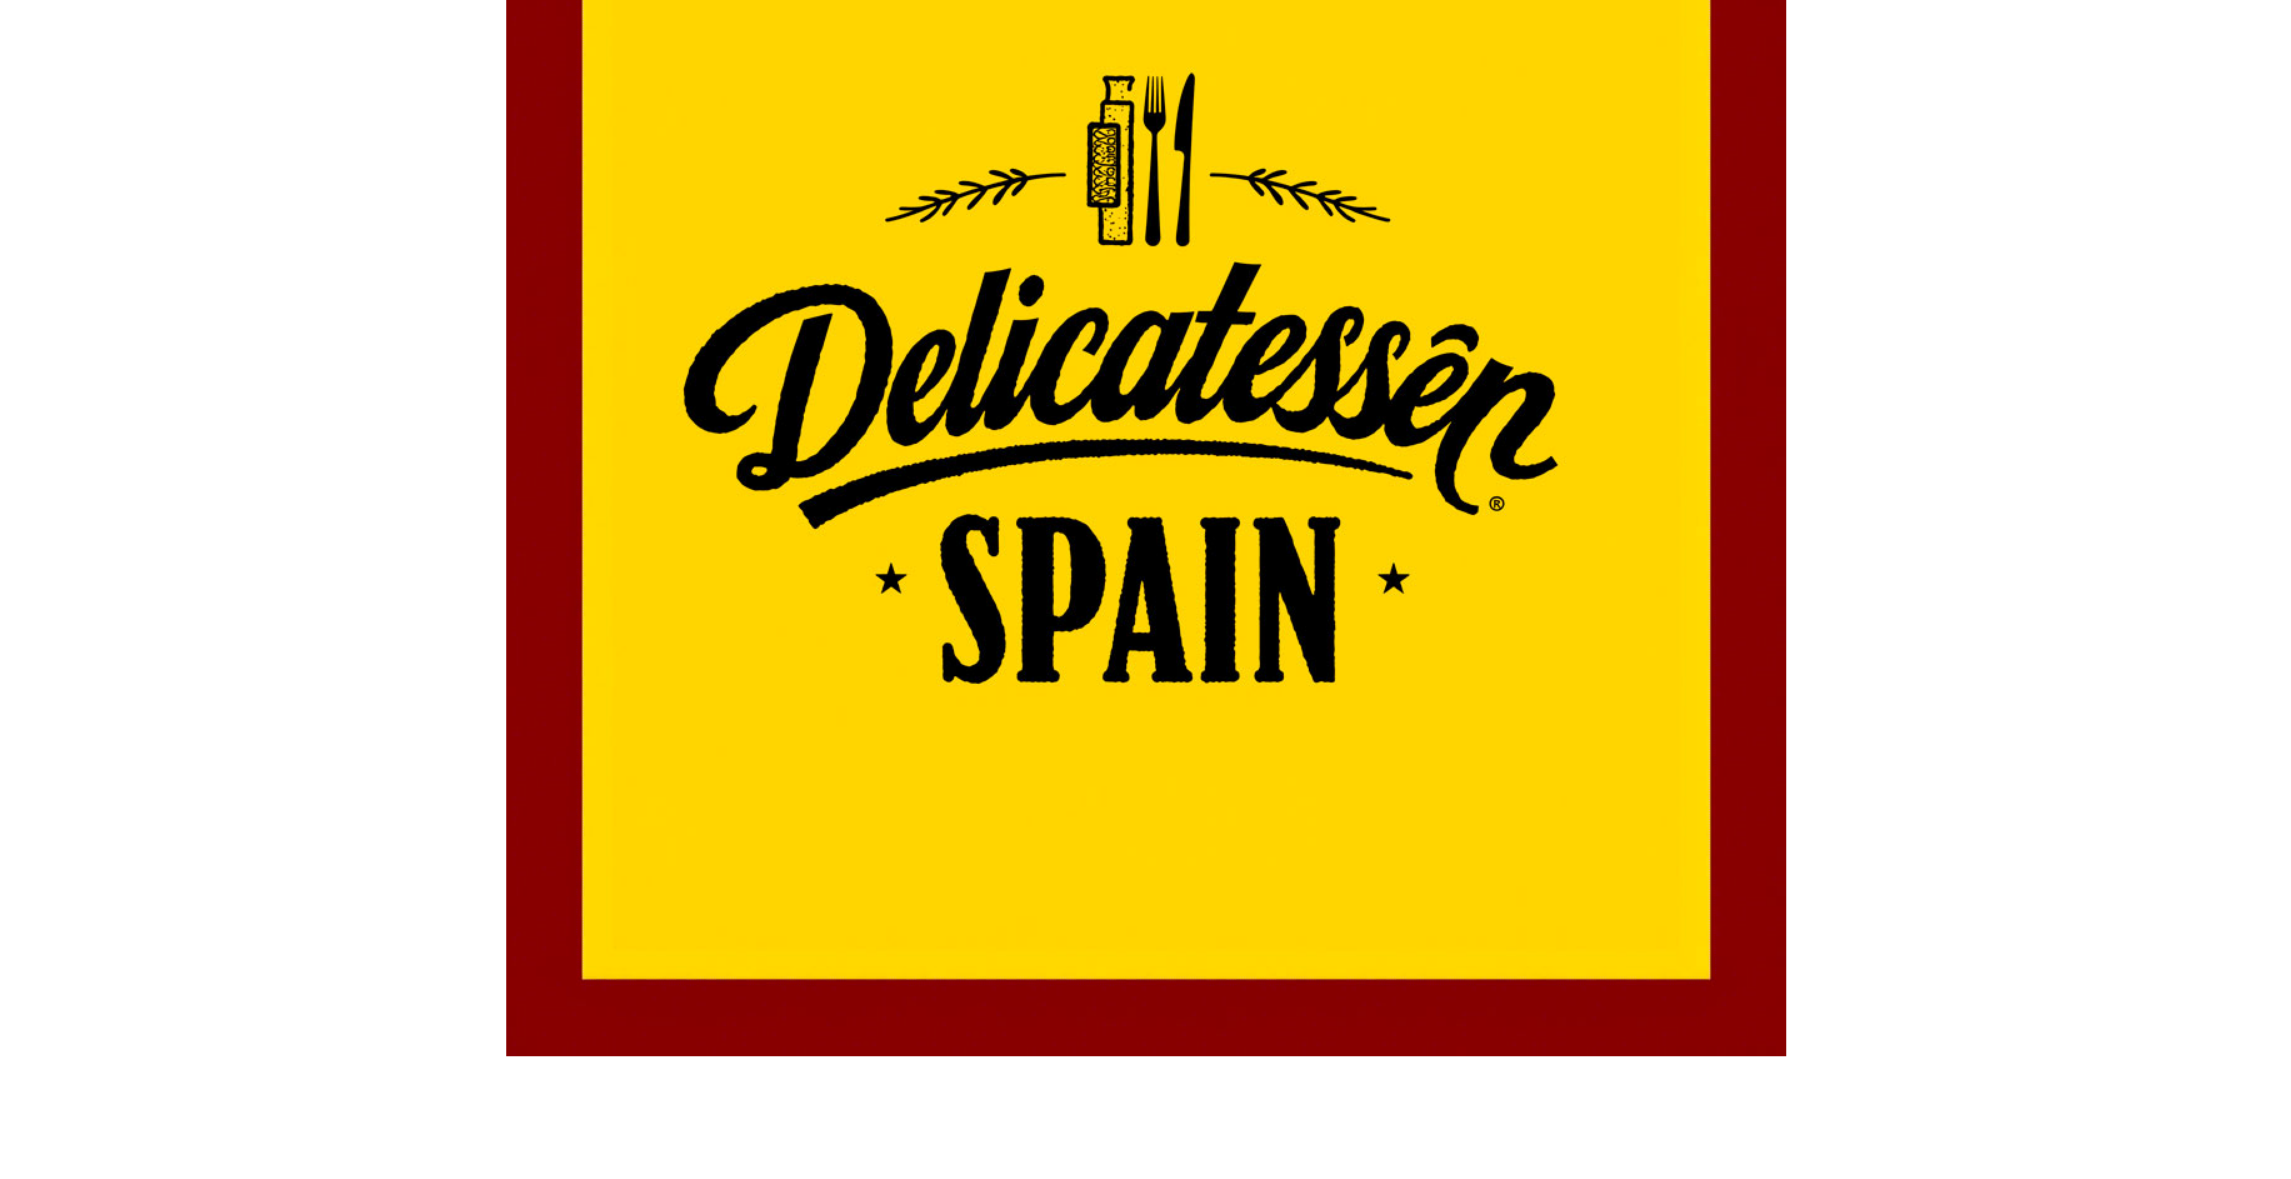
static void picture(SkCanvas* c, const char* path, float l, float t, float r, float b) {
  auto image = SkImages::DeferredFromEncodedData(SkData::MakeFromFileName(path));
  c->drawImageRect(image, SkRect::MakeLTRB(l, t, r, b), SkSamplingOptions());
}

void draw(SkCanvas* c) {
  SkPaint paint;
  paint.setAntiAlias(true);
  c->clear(0xffffffff);
  picture(c, "img_01.png", 506, 0, 1787, 1057);
}
